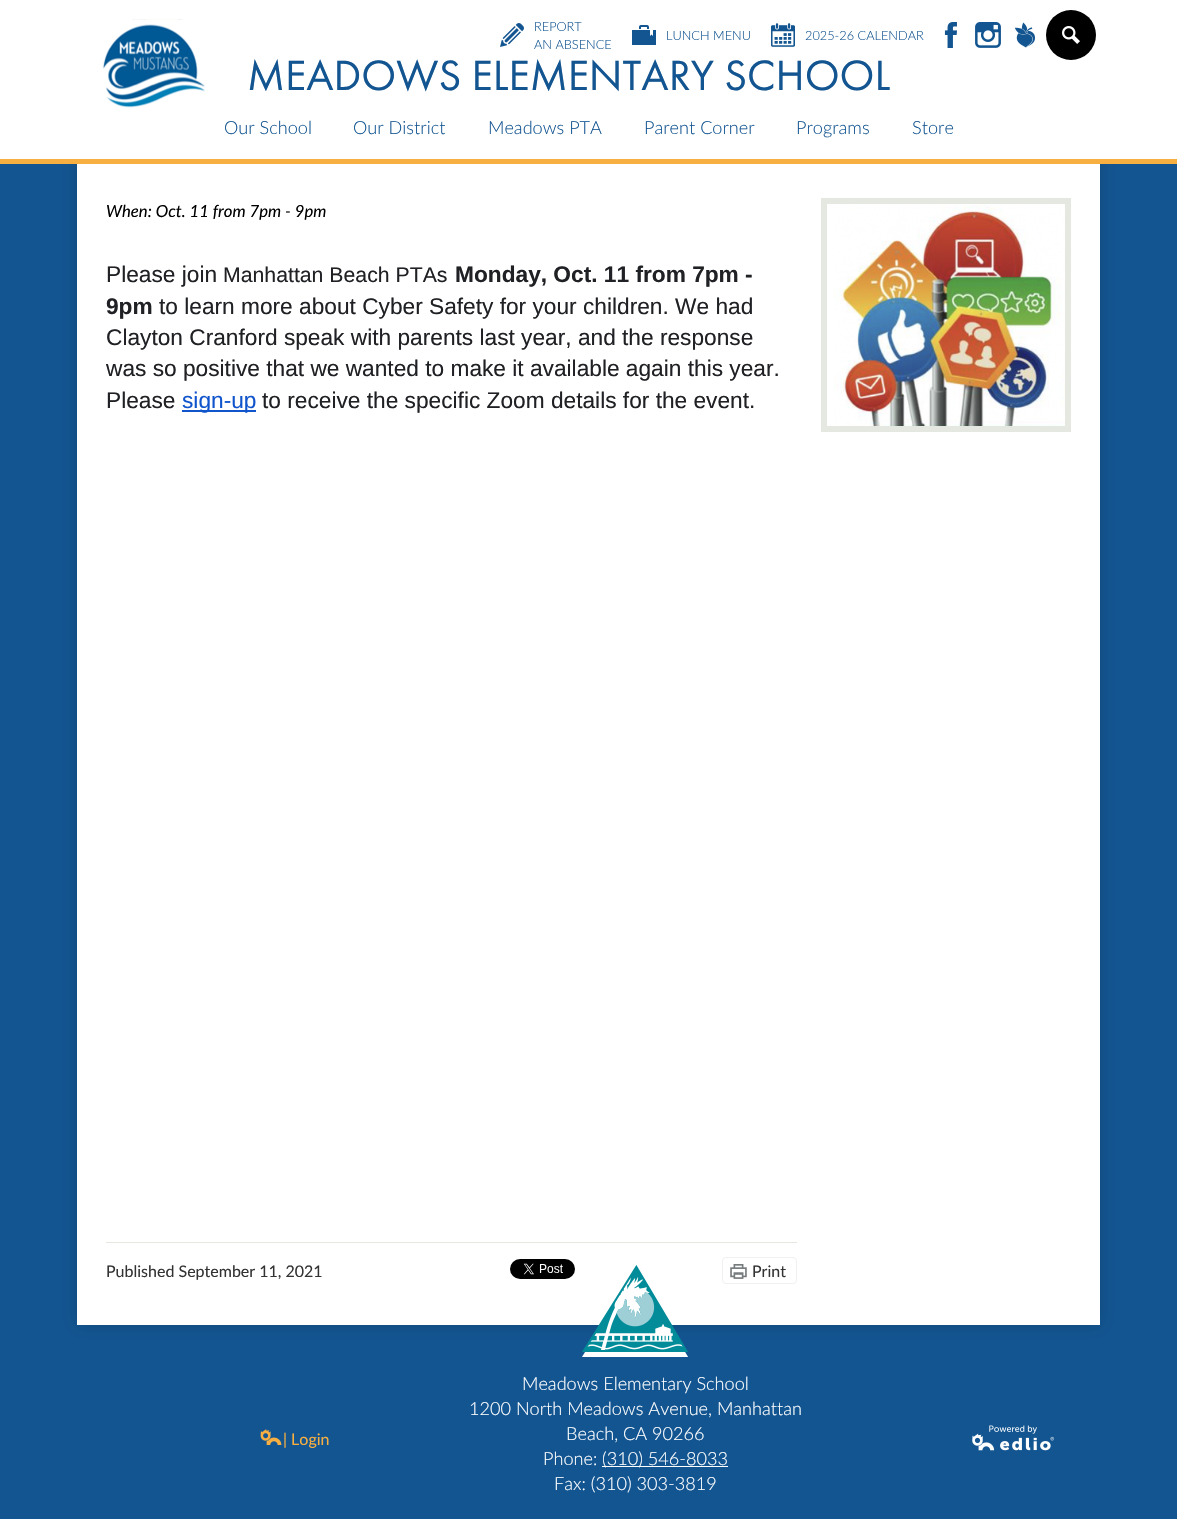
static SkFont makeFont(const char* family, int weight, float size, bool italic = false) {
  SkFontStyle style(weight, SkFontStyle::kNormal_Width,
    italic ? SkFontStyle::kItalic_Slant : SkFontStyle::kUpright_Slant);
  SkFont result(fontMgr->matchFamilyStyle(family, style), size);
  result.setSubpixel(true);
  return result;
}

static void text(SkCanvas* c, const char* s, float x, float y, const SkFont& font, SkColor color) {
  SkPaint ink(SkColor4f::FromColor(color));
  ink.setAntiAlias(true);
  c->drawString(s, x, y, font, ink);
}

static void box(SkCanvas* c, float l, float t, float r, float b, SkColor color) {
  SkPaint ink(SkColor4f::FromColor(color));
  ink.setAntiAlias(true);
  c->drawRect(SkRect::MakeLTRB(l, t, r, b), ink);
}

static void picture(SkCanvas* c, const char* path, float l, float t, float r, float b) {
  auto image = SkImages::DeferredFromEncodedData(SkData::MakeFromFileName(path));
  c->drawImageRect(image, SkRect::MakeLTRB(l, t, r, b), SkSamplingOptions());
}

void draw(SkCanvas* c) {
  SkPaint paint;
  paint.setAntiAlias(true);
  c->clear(0xff135591);
  paint.setColor(0x26000000);
  paint.setMaskFilter(SkMaskFilter::MakeBlur(kNormal_SkBlurStyle, 7.5f));
  c->drawRect(SkRect::MakeLTRB(77, 72, 1100, 1325), paint);
  paint.setMaskFilter(nullptr);
  box(c, 0, 0, 1177, 159, 0xffffffff);
  box(c, 0, 159, 1177, 164, 0xfff7af41);
  picture(c, "img_01.png", 500, 23, 524, 47);
  SkFont face1 = makeFont("Lato", 300, 12.75f);
  text(c, "REPORT", 534, 31, face1, 0xff135591);
  text(c, "AN ABSENCE", 534, 49, face1, 0xff135591);
  picture(c, "img_02.png", 632, 25, 656, 45);
  text(c, "LUNCH MENU", 666, 40, face1, 0xff135591);
  picture(c, "img_03.png", 771, 23, 795, 47);
  text(c, "2025-26 CALENDAR", 805, 40, face1, 0xff135591);
  picture(c, "img_04.png", 944, 22, 957, 48);
  picture(c, "img_05.png", 975, 22, 1001, 48);
  picture(c, "img_06.png", 1014, 22, 1035, 48);
  paint.setColor(0xff000000);
  c->drawCircle(1071, 35, 25, paint);
  picture(c, "img_07.png", 1062, 26, 1080, 44);
  picture(c, "img_08.png", 102, 19, 205, 108);
  SkFont face2 = makeFont("Futura PT", 400, 44);
  text(c, "MEADOWS ELEMENTARY SCHOOL", 247, 90, face2, 0xff135591);
  SkFont face3 = makeFont("Lato", 300, 18.1f);
  text(c, "Our School", 224, 134, face3, 0xff135591);
  text(c, "Our District", 353, 134, face3, 0xff135591);
  text(c, "Meadows PTA", 488, 134, face3, 0xff135591);
  text(c, "Parent Corner", 644, 134, face3, 0xff135591);
  text(c, "Programs", 796, 134, face3, 0xff135591);
  text(c, "Store", 912, 134, face3, 0xff135591);
  box(c, 77, 164, 1100, 1325, 0xffffffff);
  SkFont face4 = makeFont("Lato", 400, 16.7f, true);
  text(c, "When: Oct. 11 from 7pm - 9pm", 106, 217, face4, 0xff000000);
  SkFont face5 = makeFont("Liberation Sans", 400, 22.7f);
  text(c, "Please join", 106, 282, face5, 0xff202124);
  SkFont face6 = makeFont("Liberation Sans", 400, 21.25f);
  text(c, "Manhattan Beach PTAs", 223, 282, face6, 0xff202124);
  SkFont face7 = makeFont("Liberation Sans", 700, 22.7f);
  text(c, "Monday, Oct. 11 from 7pm -", 455, 282, face7, 0xff202124);
  text(c, "9pm", 106, 314, face7, 0xff202124);
  text(c, "to learn more about Cyber Safety for your children. We had", 159, 314, face5, 0xff202124);
  text(c, "Clayton Cranford speak with parents last year, and the response", 106, 345, face5, 0xff202124);
  text(c, "was so positive that we wanted to make it available again this year.", 106, 376, face5, 0xff202124);
  text(c, "Please", 106, 408, face5, 0xff202124);
  box(c, 182, 410, 256, 412, 0xff1155cc);
  text(c, "sign-up", 182, 408, face5, 0xff1155cc);
  text(c, "to receive the specific Zoom details for the event.", 262, 408, face5, 0xff202124);
  box(c, 106, 1242, 797, 1243, 0xffe5e7e1);
  SkFont face8 = makeFont("Lato", 400, 16);
  text(c, "Published September 11, 2021", 106, 1277, face8, 0xff333333);
  picture(c, "img_09.png", 510, 1259, 575, 1279);
  paint.setStyle(SkPaint::kStroke_Style);
  paint.setStrokeWidth(1);
  paint.setColor(0xfff0f0f0);
  c->drawRoundRect(SkRect::MakeLTRB(722.5f, 1257.5f, 796.5f, 1283.5f), 3.5f, 3.5f, paint);
  picture(c, "img_10.png", 730, 1264, 747, 1279);
  text(c, "Print", 752, 1277, face8, 0xff333333);
  paint.setStrokeWidth(6);
  paint.setColor(0xffe5e7e1);
  c->drawRect(SkRect::MakeLTRB(824, 201, 1068, 429), paint);
  picture(c, "img_11.png", 834, 205, 1065, 426);
  picture(c, "img_12.png", 260, 1429, 282, 1445);
  text(c, "| Login", 283, 1445, face8, 0xfff7af41);
  picture(c, "img_13.png", 582, 1265, 688, 1357);
  text(c, "Meadows Elementary School", 522, 1390, face3, 0xffffffff);
  text(c, "1200 North Meadows Avenue, Manhattan", 469, 1415, face3, 0xffffffff);
  text(c, "Beach, CA 90266", 566, 1440, face3, 0xffffffff);
  text(c, "Phone:", 543, 1465, face3, 0xffffffff);
  box(c, 602, 1466, 728, 1467, 0xffffffff);
  text(c, "(310) 546-8033", 602, 1465, face3, 0xffffffff);
  text(c, "Fax: (310) 303-3819", 554, 1490, face3, 0xffffffff);
  picture(c, "img_14.png", 972, 1425, 1054, 1451);
}
